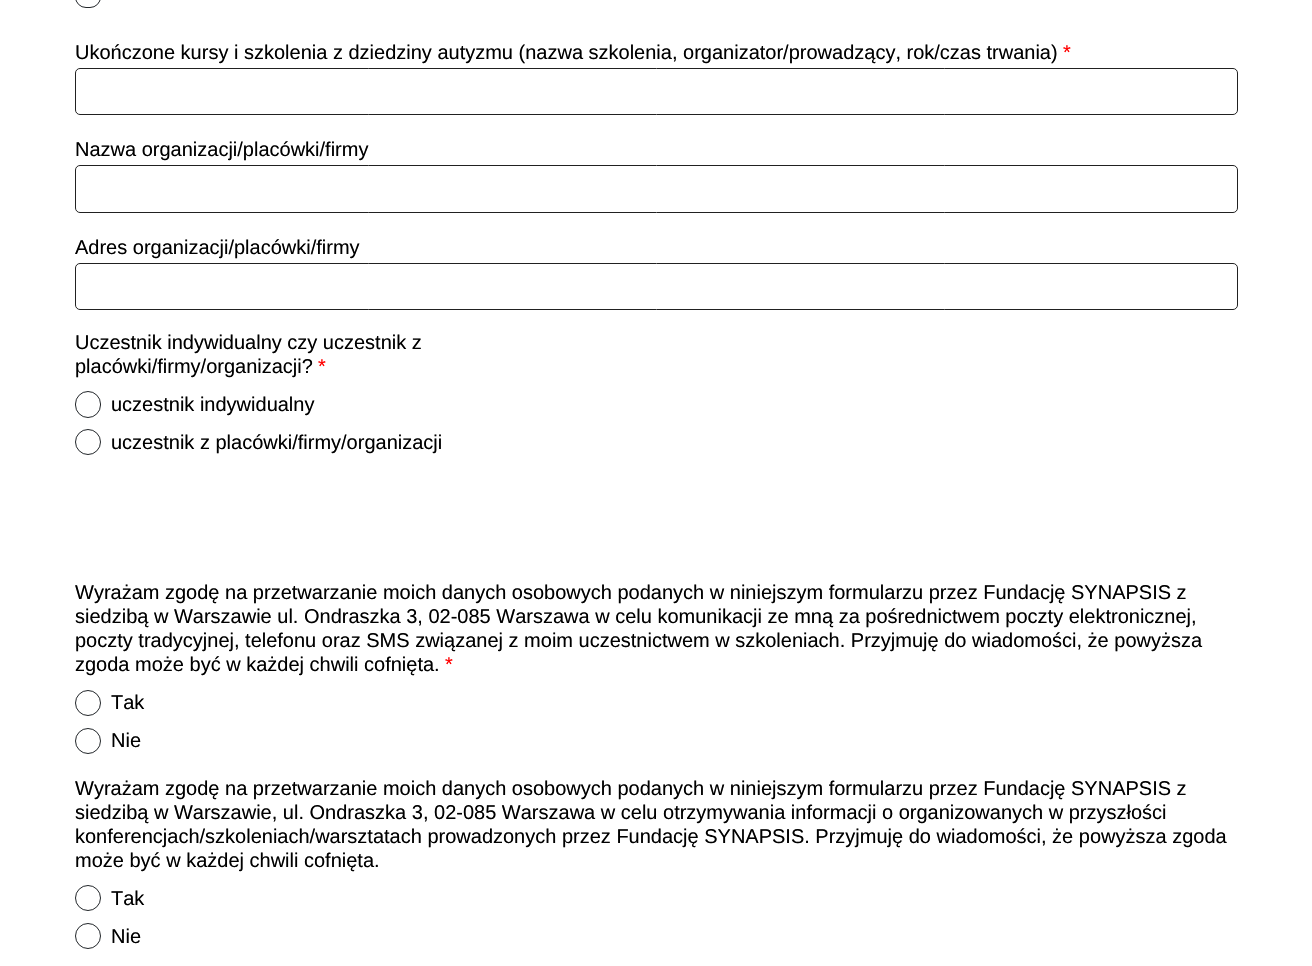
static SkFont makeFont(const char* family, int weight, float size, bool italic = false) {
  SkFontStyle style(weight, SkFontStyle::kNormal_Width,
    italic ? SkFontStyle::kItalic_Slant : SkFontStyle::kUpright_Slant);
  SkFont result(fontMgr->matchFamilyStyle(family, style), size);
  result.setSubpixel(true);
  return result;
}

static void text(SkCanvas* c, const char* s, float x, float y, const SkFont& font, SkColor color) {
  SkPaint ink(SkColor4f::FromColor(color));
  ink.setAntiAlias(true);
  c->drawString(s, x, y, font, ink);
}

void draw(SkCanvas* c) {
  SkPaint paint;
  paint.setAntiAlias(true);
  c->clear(0xffffffff);
  paint.setStyle(SkPaint::kStroke_Style);
  paint.setStrokeWidth(1);
  paint.setColor(0xff212529);
  c->drawRoundRect(SkRect::MakeLTRB(75.5f, -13.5f, 100.5f, 7.5f), 12.5f, 12.5f, paint);
  SkFont face1 = makeFont("Liberation Sans", 400, 20);
  text(c, "Ukończone kursy i szkolenia z dziedziny autyzmu (nazwa szkolenia, organizator/prowadzący, rok/czas trwania)", 75, 59, face1, 0xff000000);
  text(c, "*", 1063, 59, face1, 0xffff0000);
  paint.setColor(0xff212121);
  c->drawRoundRect(SkRect::MakeLTRB(75.5f, 68.5f, 1237.5f, 114.5f), 4.5f, 4.5f, paint);
  text(c, "Nazwa organizacji/placówki/firmy", 75, 156, face1, 0xff000000);
  c->drawRoundRect(SkRect::MakeLTRB(75.5f, 165.5f, 1237.5f, 212.5f), 4.5f, 4.5f, paint);
  text(c, "Adres organizacji/placówki/firmy", 75, 254, face1, 0xff000000);
  c->drawRoundRect(SkRect::MakeLTRB(75.5f, 263.5f, 1237.5f, 309.5f), 4.5f, 4.5f, paint);
  text(c, "Uczestnik indywidualny czy uczestnik z", 75, 349, face1, 0xff000000);
  text(c, "placówki/firmy/organizacji?", 75, 373, face1, 0xff000000);
  text(c, "*", 318, 373, face1, 0xffff0000);
  paint.setColor(0xff212529);
  c->drawRoundRect(SkRect::MakeLTRB(75.5f, 391.5f, 100.5f, 417.5f), 12.5f, 12.5f, paint);
  text(c, "uczestnik indywidualny", 111, 411, face1, 0xff000000);
  c->drawCircle(88, 442, 12.5f, paint);
  text(c, "uczestnik z placówki/firmy/organizacji", 111, 449, face1, 0xff000000);
  text(c, "Wyrażam zgodę na przetwarzanie moich danych osobowych podanych w niniejszym formularzu przez Fundację SYNAPSIS z", 75, 599, face1, 0xff000000);
  text(c, "siedzibą w Warszawie ul. Ondraszka 3, 02-085 Warszawa w celu komunikacji ze mną za pośrednictwem poczty elektronicznej,", 75, 623, face1, 0xff000000);
  text(c, "poczty tradycyjnej, telefonu oraz SMS związanej z moim uczestnictwem w szkoleniach. Przyjmuję do wiadomości, że powyższa", 75, 647, face1, 0xff000000);
  text(c, "zgoda może być w każdej chwili cofnięta.", 75, 671, face1, 0xff000000);
  text(c, "*", 445, 671, face1, 0xffff0000);
  c->drawCircle(88, 703, 12.5f, paint);
  text(c, "Tak", 111, 709, face1, 0xff000000);
  c->drawCircle(88, 741, 12.5f, paint);
  text(c, "Nie", 111, 747, face1, 0xff000000);
  text(c, "Wyrażam zgodę na przetwarzanie moich danych osobowych podanych w niniejszym formularzu przez Fundację SYNAPSIS z", 75, 795, face1, 0xff000000);
  text(c, "siedzibą w Warszawie, ul. Ondraszka 3, 02-085 Warszawa w celu otrzymywania informacji o organizowanych w przyszłości", 75, 819, face1, 0xff000000);
  text(c, "konferencjach/szkoleniach/warsztatach prowadzonych przez Fundację SYNAPSIS. Przyjmuję do wiadomości, że powyższa zgoda", 75, 843, face1, 0xff000000);
  text(c, "może być w każdej chwili cofnięta.", 75, 867, face1, 0xff000000);
  c->drawCircle(88, 898, 12.5f, paint);
  text(c, "Tak", 111, 905, face1, 0xff000000);
  c->drawCircle(88, 936, 12.5f, paint);
  text(c, "Nie", 111, 943, face1, 0xff000000);
}
